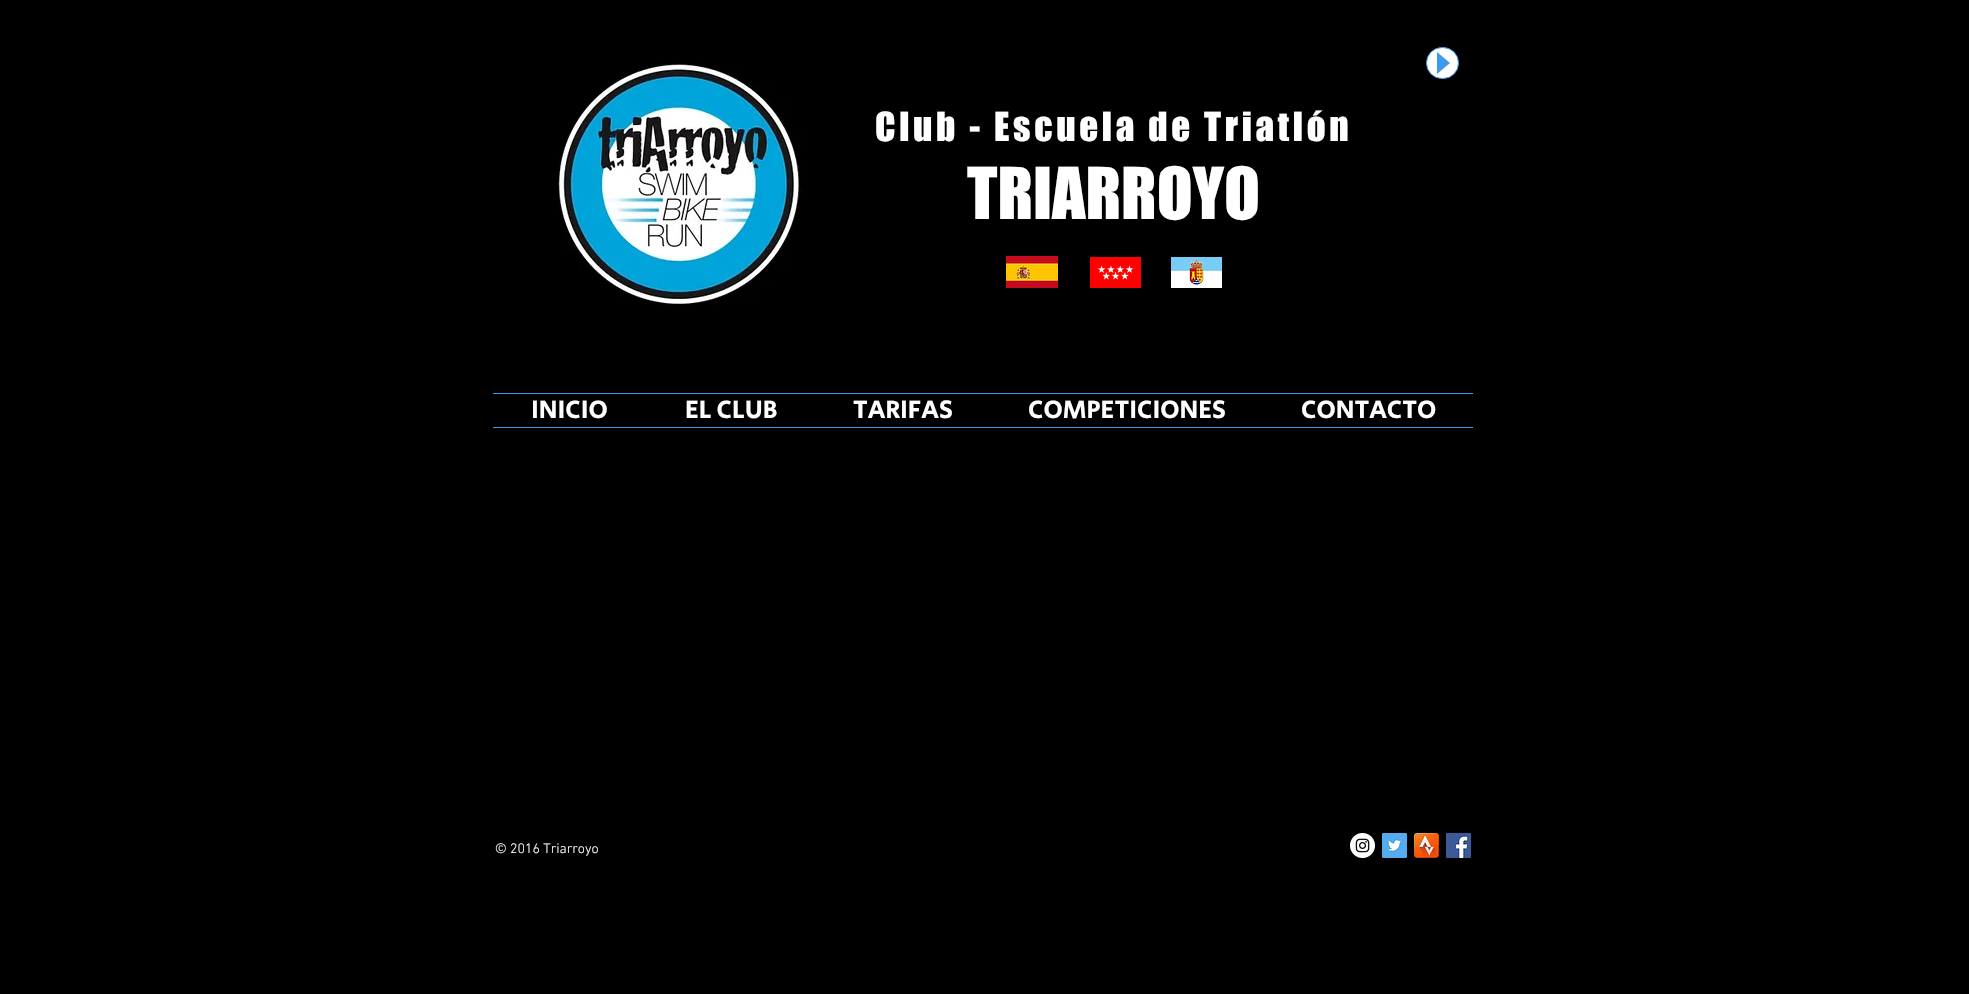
static SkFont makeFont(const char* family, int weight, float size, bool italic = false) {
  SkFontStyle style(weight, SkFontStyle::kNormal_Width,
    italic ? SkFontStyle::kItalic_Slant : SkFontStyle::kUpright_Slant);
  SkFont result(fontMgr->matchFamilyStyle(family, style), size);
  result.setSubpixel(true);
  return result;
}

static void text(SkCanvas* c, const char* s, float x, float y, const SkFont& font, SkColor color) {
  SkPaint ink(SkColor4f::FromColor(color));
  ink.setAntiAlias(true);
  c->drawString(s, x, y, font, ink);
}

static void spacedText(SkCanvas* c, const char* s, float x, float y, const SkFont& font, const SkPaint& ink, float letter, float word) {
  std::vector<SkGlyphID> glyphs(font.countText(s, strlen(s), SkTextEncoding::kUTF8));
  std::vector<float> xs(glyphs.size());
  font.textToGlyphs(s, strlen(s), SkTextEncoding::kUTF8, glyphs);
  font.getXPos(glyphs, xs, x);
  float extra = 0;
  for (size_t i = 0; i < glyphs.size(); i++) {
    xs[i] += extra;
    extra += letter + word * (glyphs[i] == font.unicharToGlyph(' '));
  }
  c->drawTextBlob(SkTextBlob::MakeFromPosHGlyphs(glyphs, xs, y, font), 0, 0, ink);
}

static void box(SkCanvas* c, float l, float t, float r, float b, SkColor color) {
  SkPaint ink(SkColor4f::FromColor(color));
  ink.setAntiAlias(true);
  c->drawRect(SkRect::MakeLTRB(l, t, r, b), ink);
}

static void picture(SkCanvas* c, const char* path, float l, float t, float r, float b) {
  auto image = SkImages::DeferredFromEncodedData(SkData::MakeFromFileName(path));
  c->drawImageRect(image, SkRect::MakeLTRB(l, t, r, b), SkSamplingOptions());
}

void draw(SkCanvas* c) {
  SkPaint paint;
  paint.setAntiAlias(true);
  c->clear(0xff000000);
  picture(c, "img_01.png", 558, 63, 802, 307);
  SkFont face1 = makeFont("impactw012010", 400, 37);
  paint.setColor(0xffffffff);
  spacedText(c, "Club - Escuela de Triatlón", 875, 141, face1, paint, 3.7f, 0);
  SkFont face2 = makeFont("impactw012010", 400, 66);
  text(c, "TRIARROYO", 967, 219, face2, 0xffffffff);
  c->drawRoundRect(SkRect::MakeLTRB(1426.5f, 47.5f, 1458.5f, 78.5f), 15.5f, 15.5f, paint);
  paint.setStyle(SkPaint::kStroke_Style);
  paint.setStrokeWidth(1);
  paint.setColor(0xff3d9be9);
  c->drawRoundRect(SkRect::MakeLTRB(1426.5f, 47.5f, 1458.5f, 78.5f), 15.5f, 15.5f, paint);
  paint.setStyle(SkPaint::kFill_Style);
  c->drawPath(SkPathBuilder().moveTo(1437, 74).lineTo(1437, 52).lineTo(1450, 63).close().detach(), paint);
  picture(c, "img_02.png", 1006, 256, 1058, 288);
  picture(c, "img_03.png", 1090, 257, 1141, 288);
  picture(c, "img_04.png", 1171, 257, 1222, 288);
  box(c, 493, 393, 1473, 394, 0xff3d9be9);
  box(c, 493, 427, 1473, 428, 0xff3d9be9);
  SkFont face3 = makeFont("Secular One", 400, 26);
  text(c, "INICIO", 531, 418, face3, 0xffffffff);
  text(c, "EL CLUB", 685, 418, face3, 0xffffffff);
  text(c, "TARIFAS", 853, 418, face3, 0xffffffff);
  text(c, "COMPETICIONES", 1028, 418, face3, 0xffffffff);
  text(c, "CONTACTO", 1301, 418, face3, 0xffffffff);
  SkFont face4 = makeFont("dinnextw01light", 300, 14);
  text(c, "© 2016 Triarroyo", 495, 853, face4, 0xffffffff);
  picture(c, "img_05.png", 1350, 833, 1375, 858);
  picture(c, "img_06.png", 1382, 833, 1407, 858);
  picture(c, "img_07.png", 1414, 833, 1439, 858);
  picture(c, "img_08.png", 1446, 833, 1471, 858);
}
